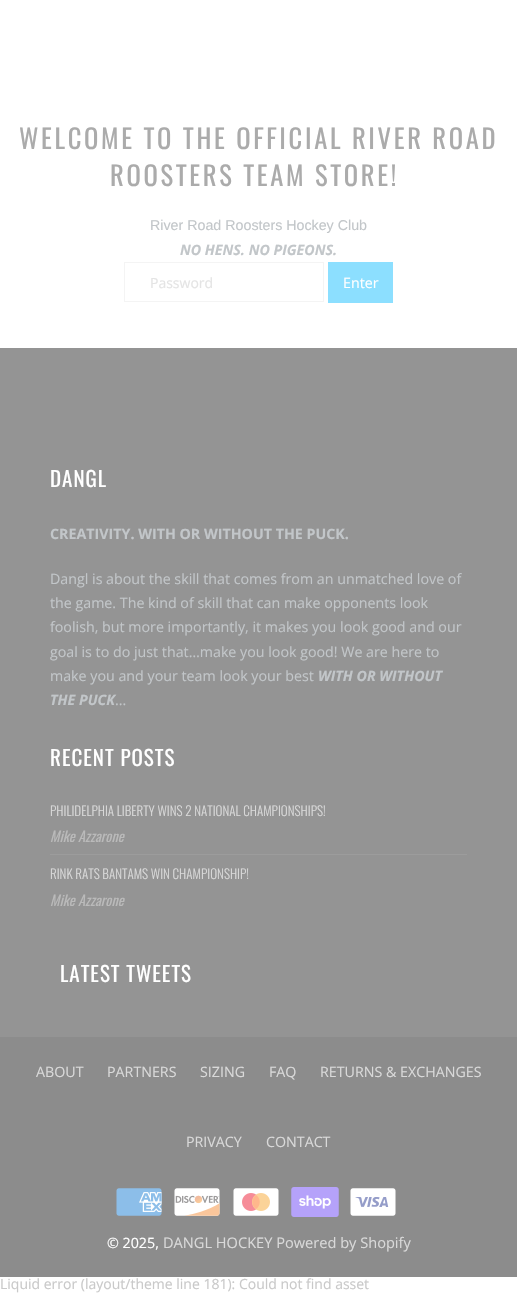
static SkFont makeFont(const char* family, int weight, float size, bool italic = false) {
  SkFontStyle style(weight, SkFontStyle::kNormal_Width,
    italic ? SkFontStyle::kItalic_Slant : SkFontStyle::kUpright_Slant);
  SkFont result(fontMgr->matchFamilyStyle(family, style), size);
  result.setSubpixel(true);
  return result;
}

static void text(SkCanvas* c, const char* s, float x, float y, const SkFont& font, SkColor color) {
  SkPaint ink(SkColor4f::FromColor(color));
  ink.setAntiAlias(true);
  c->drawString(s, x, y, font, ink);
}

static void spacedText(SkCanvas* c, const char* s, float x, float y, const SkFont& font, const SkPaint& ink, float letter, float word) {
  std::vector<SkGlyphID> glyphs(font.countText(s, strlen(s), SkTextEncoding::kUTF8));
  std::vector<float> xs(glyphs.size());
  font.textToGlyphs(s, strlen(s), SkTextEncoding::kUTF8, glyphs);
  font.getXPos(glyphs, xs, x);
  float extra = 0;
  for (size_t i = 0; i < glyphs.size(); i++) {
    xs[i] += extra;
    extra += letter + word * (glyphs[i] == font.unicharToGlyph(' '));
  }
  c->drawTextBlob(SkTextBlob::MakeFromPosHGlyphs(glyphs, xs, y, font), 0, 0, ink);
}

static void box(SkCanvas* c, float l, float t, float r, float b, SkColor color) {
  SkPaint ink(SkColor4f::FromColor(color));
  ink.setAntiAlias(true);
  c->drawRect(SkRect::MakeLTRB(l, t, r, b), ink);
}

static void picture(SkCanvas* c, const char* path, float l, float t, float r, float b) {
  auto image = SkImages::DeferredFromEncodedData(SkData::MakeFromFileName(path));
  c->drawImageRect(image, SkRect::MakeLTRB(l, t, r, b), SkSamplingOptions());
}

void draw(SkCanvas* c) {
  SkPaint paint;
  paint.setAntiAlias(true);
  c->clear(0xffffffff);
  SkFont face1 = makeFont("Oswald", 400, 26.6f);
  paint.setColor(0xffababab);
  spacedText(c, "WELCOME TO THE OFFICIAL RIVER ROAD", 19, 149, face1, paint, 2.65f, 0);
  spacedText(c, "ROOSTERS TEAM STORE!", 110, 186, face1, paint, 2.65f, 0);
  SkFont face2 = makeFont("Liberation Sans", 400, 14.25f);
  text(c, "River Road Roosters Hockey Club", 150, 230, face2, 0xffc2c6c9);
  SkFont face3 = makeFont("Open Sans", 700, 14.25f, true);
  text(c, "NO HENS. NO PIGEONS.", 180, 255, face3, 0xffc2c6c9);
  paint.setStyle(SkPaint::kStroke_Style);
  paint.setStrokeWidth(1);
  paint.setColor(0xfff4f4f4);
  c->drawRect(SkRect::MakeLTRB(124.5f, 262.5f, 323.5f, 301.5f), paint);
  SkFont face4 = makeFont("Open Sans", 400, 14);
  text(c, "Password", 150, 288, face4, 0xffe4e4e4);
  box(c, 328, 262, 393, 303, 0xff8cdfff);
  SkFont face5 = makeFont("Open Sans", 400, 14.25f);
  text(c, "Enter", 343, 288, face5, 0xffffffff);
  box(c, 0, 348, 517, 1037, 0xff949494);
  SkFont face6 = makeFont("Oswald", 400, 21);
  paint.setStyle(SkPaint::kFill_Style);
  paint.setColor(0xffffffff);
  spacedText(c, "DANGL", 50, 487, face6, paint, 1, 0);
  SkFont face7 = makeFont("Open Sans", 700, 14.25f);
  text(c, "CREATIVITY. WITH OR WITHOUT THE PUCK.", 50, 539, face7, 0xffc2c6c9);
  text(c, "Dangl is about the skill that comes from an unmatched love of", 50, 584, face5, 0xffc2c6c9);
  text(c, "the game. The kind of skill that can make opponents look", 50, 608, face5, 0xffc2c6c9);
  text(c, "foolish, but more importantly, it makes you look good and our", 50, 632, face5, 0xffc2c6c9);
  text(c, "goal is to do just that…make you look good! We are here to", 50, 657, face5, 0xffc2c6c9);
  text(c, "make you and your team look your best", 50, 681, face5, 0xffc2c6c9);
  text(c, "WITH OR WITHOUT", 318, 681, face3, 0xffc2c6c9);
  text(c, "THE PUCK", 50, 705, face3, 0xffc2c6c9);
  text(c, "...", 115, 705, face5, 0xffc2c6c9);
  spacedText(c, "RECENT POSTS", 50, 766, face6, paint, 1, 0);
  box(c, 50, 854, 467, 855, 0xff9c9c9c);
  SkFont face8 = makeFont("Oswald", 300, 13.1f);
  text(c, "PHILIDELPHIA LIBERTY WINS 2 NATIONAL CHAMPIONSHIPS!", 50, 816, face8, 0xffd9d9d9);
  SkFont face9 = makeFont("Oswald", 400, 14.25f, true);
  text(c, "Mike Azzarone", 50, 842, face9, 0xffbababa);
  text(c, "RINK RATS BANTAMS WIN CHAMPIONSHIP!", 50, 879, face8, 0xffd9d9d9);
  text(c, "Mike Azzarone", 50, 906, face9, 0xffbababa);
  spacedText(c, "LATEST TWEETS", 60, 982, face6, paint, 1, 0);
  box(c, 0, 1037, 517, 1277, 0xff8c8c8c);
  text(c, "ABOUT", 36, 1077, face5, 0xffd9d9d9);
  text(c, "PARTNERS", 107, 1077, face5, 0xffd9d9d9);
  text(c, "SIZING", 200, 1077, face5, 0xffd9d9d9);
  text(c, "FAQ", 269, 1077, face5, 0xffd9d9d9);
  text(c, "RETURNS & EXCHANGES", 320, 1077, face5, 0xffd9d9d9);
  text(c, "PRIVACY", 186, 1147, face5, 0xffd9d9d9);
  text(c, "CONTACT", 266, 1147, face5, 0xffd9d9d9);
  picture(c, "img_01.png", 116, 1188, 162, 1216);
  picture(c, "img_02.png", 174, 1188, 220, 1216);
  picture(c, "img_03.png", 233, 1188, 279, 1216);
  picture(c, "img_04.png", 291, 1187, 339, 1217);
  picture(c, "img_05.png", 350, 1188, 396, 1216);
  text(c, "© 2025,", 107, 1248, face5, 0xffffffff);
  SkFont face10 = makeFont("Open Sans", 400, 14.6f);
  text(c, "DANGL HOCKEY Powered by Shopify", 163, 1248, face10, 0xffd9d9d9);
  text(c, "Liquid error (layout/theme line 181): Could not find asset", 0, 1289, face4, 0xffc9c9c9);
}
